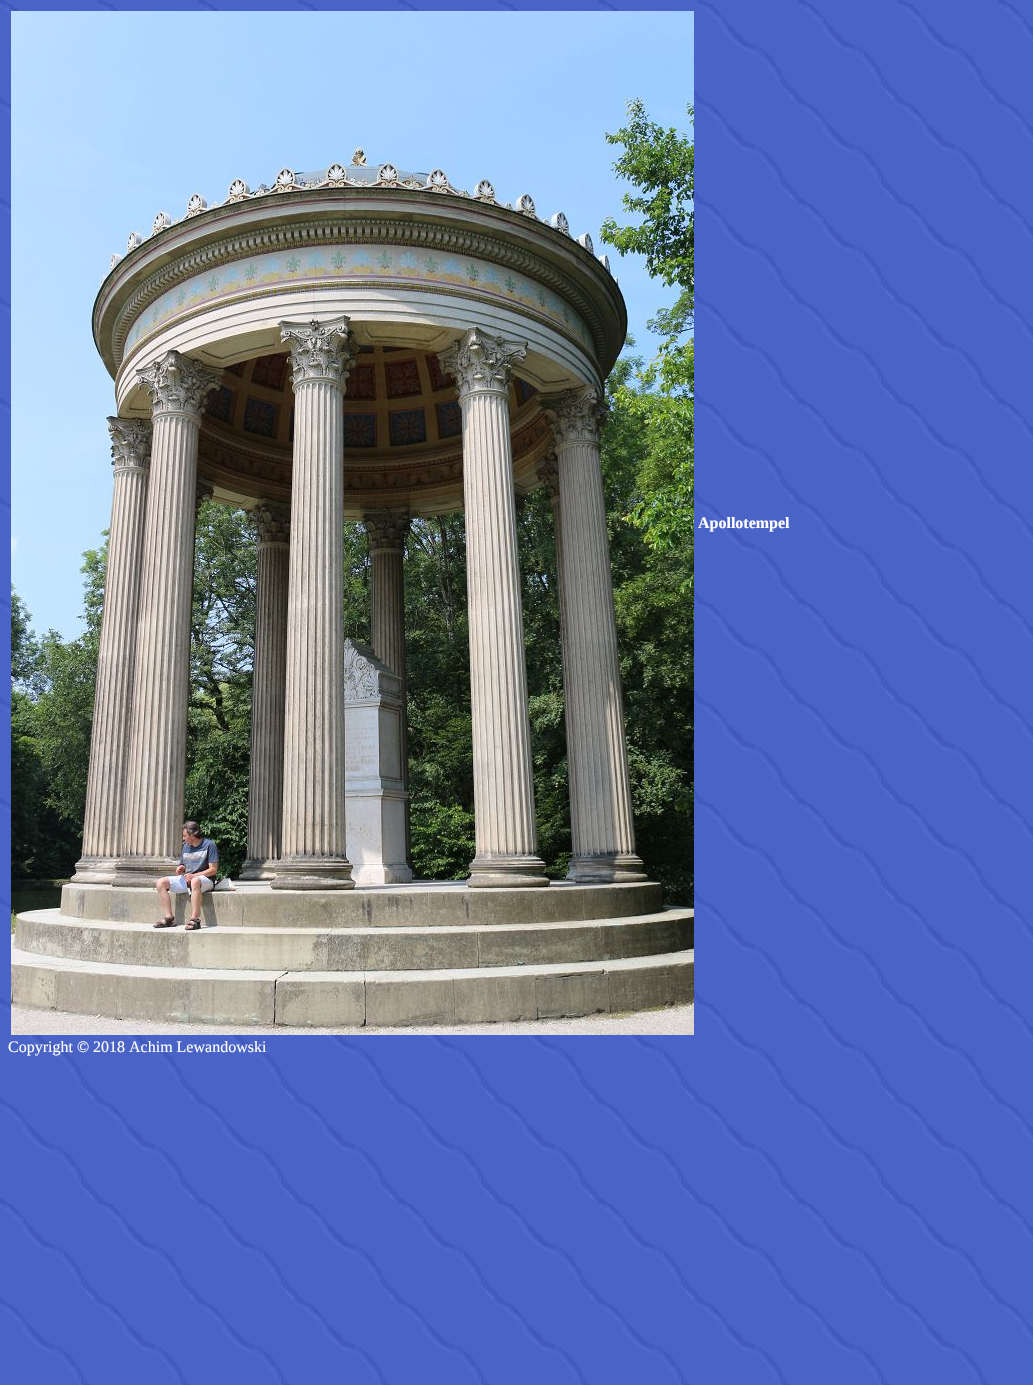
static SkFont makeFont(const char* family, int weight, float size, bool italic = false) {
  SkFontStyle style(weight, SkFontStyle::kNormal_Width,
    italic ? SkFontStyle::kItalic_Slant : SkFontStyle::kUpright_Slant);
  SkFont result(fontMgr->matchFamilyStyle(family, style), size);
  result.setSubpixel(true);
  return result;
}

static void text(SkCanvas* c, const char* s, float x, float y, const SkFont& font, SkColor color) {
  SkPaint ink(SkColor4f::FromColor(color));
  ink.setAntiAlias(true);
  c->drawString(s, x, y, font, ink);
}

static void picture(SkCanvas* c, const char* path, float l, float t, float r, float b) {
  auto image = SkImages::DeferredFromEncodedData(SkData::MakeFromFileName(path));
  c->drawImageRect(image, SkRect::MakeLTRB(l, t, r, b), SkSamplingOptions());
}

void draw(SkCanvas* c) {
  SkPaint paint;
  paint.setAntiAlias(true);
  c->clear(0xffffffff);
  picture(c, "img_01.png", 0, 0, 1033, 1385);
  picture(c, "img_02.png", 11, 11, 694, 1035);
  SkFont face1 = makeFont("Liberation Serif", 700, 16);
  text(c, "Apollotempel", 698, 528, face1, 0xffffffff);
  SkFont face2 = makeFont("Liberation Serif", 400, 16);
  text(c, "Copyright © 2018 Achim Lewandowski", 8, 1052, face2, 0xffffffff);
}
